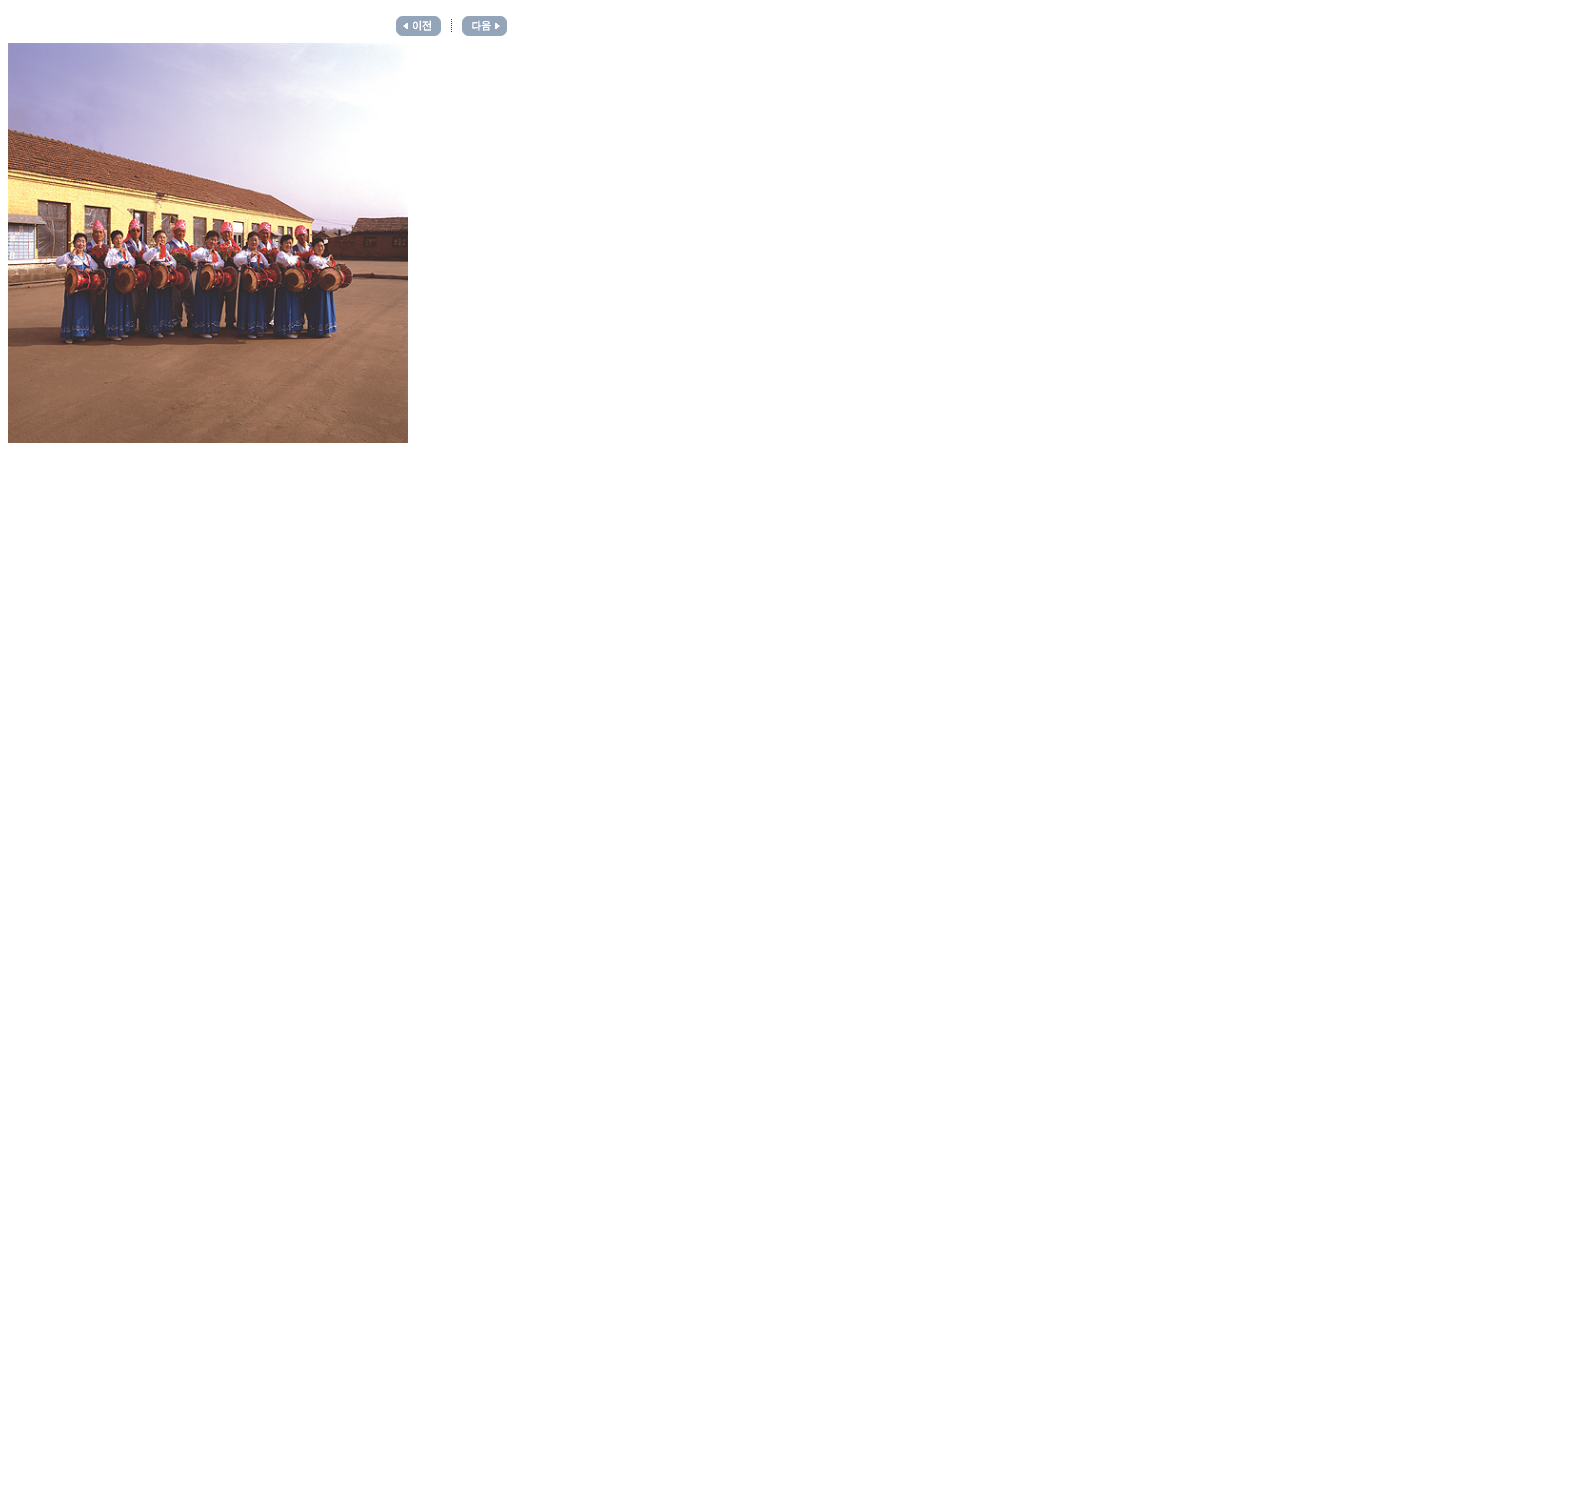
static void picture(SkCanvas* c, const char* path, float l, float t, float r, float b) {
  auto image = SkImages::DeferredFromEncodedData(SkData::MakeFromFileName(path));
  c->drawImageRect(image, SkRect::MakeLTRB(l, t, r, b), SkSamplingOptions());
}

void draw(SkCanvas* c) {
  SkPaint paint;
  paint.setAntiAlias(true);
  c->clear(0xffffffff);
  picture(c, "img_01.png", 396, 16, 441, 36);
  picture(c, "img_02.png", 451, 19, 452, 32);
  picture(c, "img_03.png", 462, 16, 507, 36);
  picture(c, "img_04.png", 8, 43, 408, 443);
}
